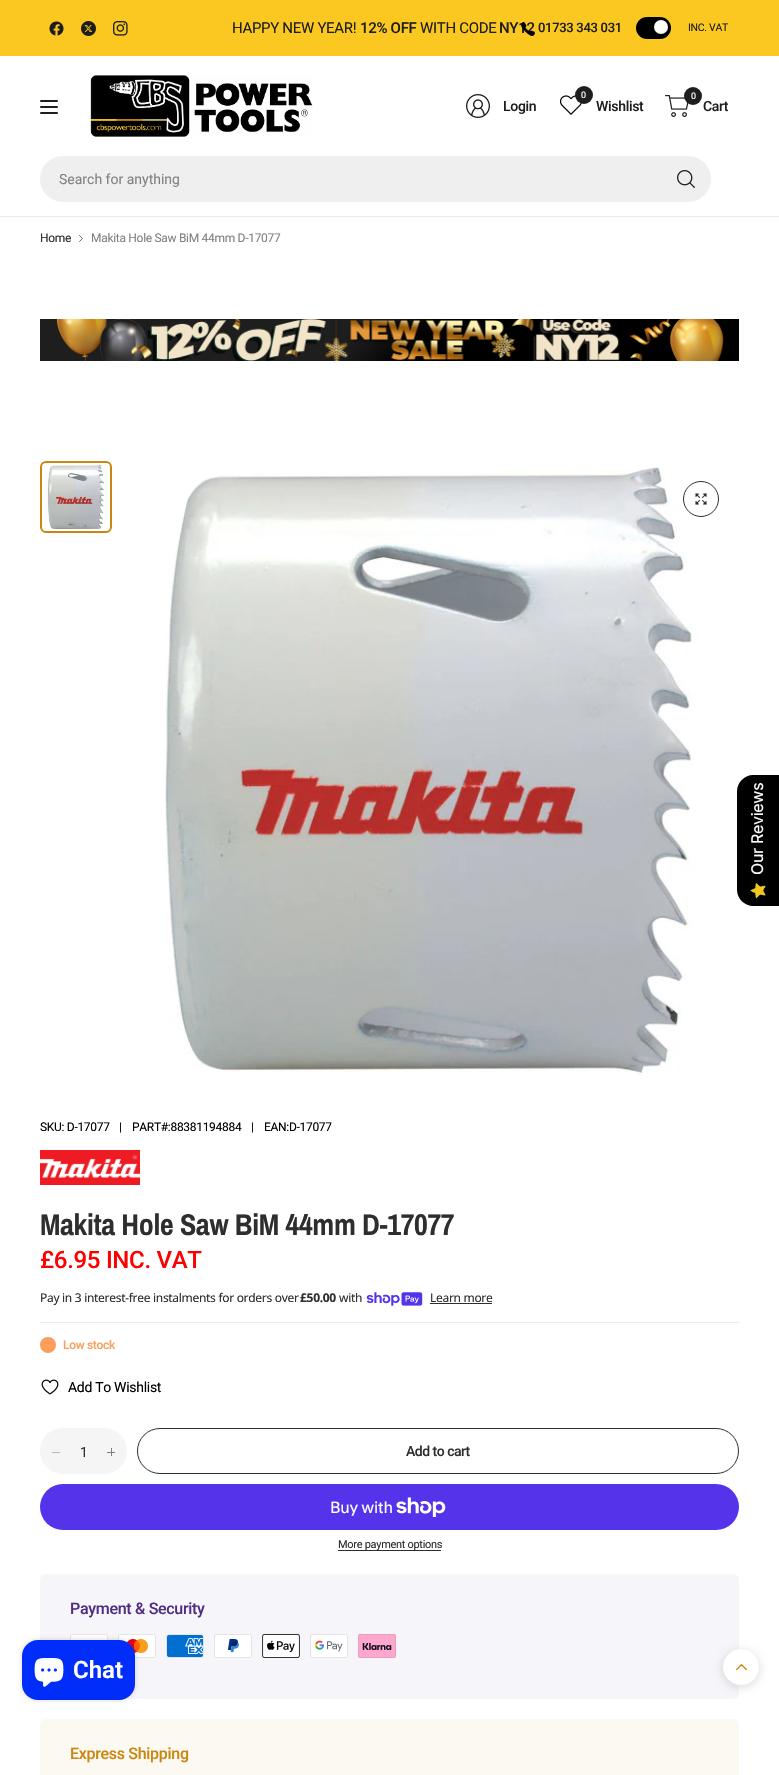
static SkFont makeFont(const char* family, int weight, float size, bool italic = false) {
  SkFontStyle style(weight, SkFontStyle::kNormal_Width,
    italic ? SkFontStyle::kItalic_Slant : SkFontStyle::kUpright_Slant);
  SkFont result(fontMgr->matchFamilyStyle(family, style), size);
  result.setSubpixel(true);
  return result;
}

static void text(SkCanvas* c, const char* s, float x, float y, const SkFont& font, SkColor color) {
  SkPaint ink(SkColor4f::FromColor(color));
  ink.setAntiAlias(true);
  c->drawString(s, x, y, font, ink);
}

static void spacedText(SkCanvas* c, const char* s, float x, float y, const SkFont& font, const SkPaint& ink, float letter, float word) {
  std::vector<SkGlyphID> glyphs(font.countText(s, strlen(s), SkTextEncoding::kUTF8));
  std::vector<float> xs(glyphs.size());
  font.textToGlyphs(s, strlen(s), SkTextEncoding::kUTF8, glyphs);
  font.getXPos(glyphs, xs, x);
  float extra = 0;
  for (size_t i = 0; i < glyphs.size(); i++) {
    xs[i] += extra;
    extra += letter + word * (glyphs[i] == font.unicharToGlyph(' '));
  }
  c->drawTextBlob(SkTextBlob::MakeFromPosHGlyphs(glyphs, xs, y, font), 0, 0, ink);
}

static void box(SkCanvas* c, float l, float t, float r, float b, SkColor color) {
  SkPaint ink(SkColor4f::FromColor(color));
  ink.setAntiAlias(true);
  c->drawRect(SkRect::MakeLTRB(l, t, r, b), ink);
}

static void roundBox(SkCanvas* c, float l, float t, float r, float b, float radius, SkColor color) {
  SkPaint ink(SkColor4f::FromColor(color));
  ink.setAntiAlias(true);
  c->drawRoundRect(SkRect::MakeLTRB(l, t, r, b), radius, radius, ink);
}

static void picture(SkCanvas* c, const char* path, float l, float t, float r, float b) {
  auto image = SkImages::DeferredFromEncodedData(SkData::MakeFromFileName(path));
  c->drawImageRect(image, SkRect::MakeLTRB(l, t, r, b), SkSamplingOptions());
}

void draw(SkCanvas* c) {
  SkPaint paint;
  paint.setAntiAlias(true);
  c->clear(0xffffffff);
  box(c, 0, 0, 779, 56, 0xfffbc821);
  picture(c, "img_01.png", 49, 21, 64, 36);
  picture(c, "img_02.png", 81, 21, 96, 36);
  picture(c, "img_03.png", 113, 21, 128, 36);
  SkFont face1 = makeFont("Roboto", 400, 15);
  paint.setColor(0xff1e1e1e);
  spacedText(c, "HAPPY NEW YEAR!", 232, 33, face1, paint, -0.3f, 0);
  SkFont face2 = makeFont("Roboto", 500, 15);
  spacedText(c, "12% OFF", 360, 33, face2, paint, -0.3f, 0);
  spacedText(c, "WITH CODE", 420, 33, face1, paint, -0.3f, 0);
  spacedText(c, "NY12", 499, 33, face2, paint, -0.3f, 0);
  picture(c, "img_04.png", 521, 22, 535, 36);
  SkFont face3 = makeFont("Roboto", 500, 13);
  spacedText(c, "01733 343 031", 538, 32, face3, paint, -0.3f, 0);
  roundBox(c, 636, 17, 671, 39, 11, 0xff000000);
  paint.setColor(0xffffffff);
  c->drawCircle(661, 27, 7, paint);
  SkFont face4 = makeFont("Roboto", 400, 10.5f);
  paint.setColor(0xff1e1e1e);
  spacedText(c, "INC. VAT", 688, 31, face4, paint, -0.3f, 0);
  roundBox(c, 40, 100, 58, 102, 1, 0xff1e1e1e);
  roundBox(c, 40, 106, 58, 108, 1, 0xff1e1e1e);
  roundBox(c, 40, 112, 58, 114, 1, 0xff1e1e1e);
  picture(c, "img_05.png", 90, 75, 313, 137);
  picture(c, "img_06.png", 466, 94, 490, 118);
  SkFont face5 = makeFont("Roboto", 500, 14);
  spacedText(c, "Login", 503, 111, face5, paint, -0.3f, 0);
  picture(c, "img_07.png", 559, 95, 582, 115);
  c->drawCircle(584, 95, 9, paint);
  SkFont face6 = makeFont("Roboto", 400, 9);
  paint.setColor(0xffffffff);
  spacedText(c, "0", 581, 98, face6, paint, -0.3f, 0);
  paint.setColor(0xff1e1e1e);
  spacedText(c, "Wishlist", 596, 111, face5, paint, -0.3f, 0);
  picture(c, "img_08.png", 665, 95, 689, 117);
  c->drawCircle(693, 96, 9, paint);
  paint.setColor(0xffffffff);
  spacedText(c, "0", 691, 99, face6, paint, -0.3f, 0);
  paint.setColor(0xff1e1e1e);
  spacedText(c, "Cart", 703, 111, face5, paint, -0.3f, 0);
  roundBox(c, 40, 156, 711, 202, 23, 0xffefefef);
  SkFont face7 = makeFont("Roboto", 400, 14);
  text(c, "Search for anything", 59, 184, face7, 0xff828282);
  picture(c, "img_09.png", 677, 170, 695, 188);
  box(c, 0, 216, 779, 217, 0xffe9e9e9);
  SkFont face8 = makeFont("Roboto", 400, 12);
  paint.setColor(0xff2e2e2e);
  spacedText(c, "Home", 40, 242, face8, paint, -0.3f, 0);
  paint.setStyle(SkPaint::kStroke_Style);
  paint.setStrokeWidth(0.7f);
  paint.setStrokeCap(SkPaint::kRound_Cap);
  paint.setStrokeJoin(SkPaint::kRound_Join);
  c->drawPath(SkPathBuilder().moveTo(79.5f, 235.5f).lineTo(82.5f, 238.5f).lineTo(79.5f, 241.5f).detach(), paint);
  paint.setStyle(SkPaint::kFill_Style);
  paint.setColor(0xff828282);
  spacedText(c, "Makita Hole Saw BiM 44mm D-17077", 91, 242, face8, paint, -0.3f, 0);
  picture(c, "img_10.png", 40, 319, 739, 361);
  picture(c, "img_11.png", 47, 464, 105, 530);
  paint.setStyle(SkPaint::kStroke_Style);
  paint.setStrokeWidth(2);
  paint.setStrokeCap(SkPaint::kButt_Cap);
  paint.setStrokeJoin(SkPaint::kMiter_Join);
  paint.setColor(0xffc9870f);
  c->drawRoundRect(SkRect::MakeLTRB(41, 462, 111, 532), 5, 5, paint);
  picture(c, "img_12.png", 165, 467, 698, 1076);
  paint.setStrokeWidth(1);
  paint.setColor(0xff2e2e2e);
  c->drawCircle(701, 499, 17.5f, paint);
  picture(c, "img_13.png", 695, 493, 707, 505);
  paint.setStyle(SkPaint::kFill_Style);
  paint.setColor(0xff000000);
  spacedText(c, "SKU: D-17077", 40, 1131, face8, paint, -0.3f, 0);
  spacedText(c, "|", 119, 1131, face8, paint, -0.3f, 0);
  spacedText(c, "PART#:88381194884", 132, 1131, face8, paint, -0.3f, 0);
  spacedText(c, "|", 251, 1131, face8, paint, -0.3f, 0);
  spacedText(c, "EAN:D-17077", 264, 1131, face8, paint, -0.3f, 0);
  picture(c, "img_14.png", 40, 1150, 140, 1185);
  box(c, 40, 1322, 739, 1323, 0xffeaeaea);
  SkFont face9 = makeFont("Archivo Narrow", 700, 30);
  paint.setColor(0xff2e2e2e);
  spacedText(c, "Makita Hole Saw BiM 44mm D-17077", 40, 1235, face9, paint, -0.3f, 0);
  SkFont face10 = makeFont("Roboto", 500, 24);
  paint.setColor(0xffff0000);
  spacedText(c, "£6.95 INC. VAT", 40, 1268, face10, paint, -0.3f, 0);
  SkFont face11 = makeFont("Noto Sans", 400, 12);
  paint.setColor(0xff2e2e2e);
  spacedText(c, "Pay in 3 interest-free instalments for orders over", 40, 1302, face11, paint, -0.3f, 0);
  SkFont face12 = makeFont("Noto Sans", 700, 12);
  spacedText(c, "£50.00", 300, 1302, face12, paint, -0.3f, 0);
  spacedText(c, "with", 339, 1302, face11, paint, -0.3f, 0);
  picture(c, "img_15.png", 366, 1292, 423, 1306);
  spacedText(c, "Learn more", 430, 1302, face11, paint, -0.3f, 0);
  box(c, 430, 1303, 492, 1304, 0xff2e2e2e);
  paint.setColor(0xfffb9e5b);
  c->drawCircle(48, 1345, 8, paint);
  SkFont face13 = makeFont("Roboto", 500, 12);
  spacedText(c, "Low stock", 63, 1349, face13, paint, -0.3f, 0);
  picture(c, "img_16.png", 41, 1379, 59, 1395);
  paint.setColor(0xff000000);
  spacedText(c, "Add To Wishlist", 68, 1392, face7, paint, -0.3f, 0);
  roundBox(c, 40, 1428, 127, 1474, 23, 0xfff5f5f5);
  box(c, 52, 1452, 60, 1453, 0xffb9b9b9);
  text(c, "1", 80, 1457, face7, 0xff2e2e2e);
  box(c, 111, 1448, 112, 1456, 0xff7e7e7e);
  box(c, 107, 1452, 115, 1453, 0xff7e7e7e);
  paint.setStyle(SkPaint::kStroke_Style);
  paint.setColor(0xff2e2e2e);
  c->drawRoundRect(SkRect::MakeLTRB(137.5f, 1428.5f, 738.5f, 1473.5f), 22.5f, 22.5f, paint);
  paint.setStyle(SkPaint::kFill_Style);
  spacedText(c, "Add to cart", 406, 1456, face5, paint, -0.5f, 0);
  roundBox(c, 40, 1484, 739, 1530, 23, 0xff5433eb);
  SkFont face14 = makeFont("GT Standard", 400, 16);
  paint.setColor(0xffffffff);
  spacedText(c, "Buy with", 330, 1513, face14, paint, -0.3f, 0);
  picture(c, "img_17.png", 396, 1497, 446, 1517);
  box(c, 338, 1550, 441, 1551, 0xff2e2e2e);
  SkFont face15 = makeFont("Roboto", 400, 11);
  paint.setColor(0xff2e2e2e);
  spacedText(c, "More payment options", 338, 1548, face15, paint, -0.3f, 0);
  roundBox(c, 40, 1574, 739, 1699, 6, 0xfff6f5f9);
  SkFont face16 = makeFont("Roboto", 500, 16);
  paint.setColor(0xff4f2e83);
  spacedText(c, "Payment & Security", 70, 1614, face16, paint, -0.3f, 0);
  picture(c, "img_18.png", 70, 1634, 108, 1640);
  picture(c, "img_19.png", 118, 1634, 156, 1658);
  picture(c, "img_20.png", 166, 1634, 204, 1658);
  picture(c, "img_21.png", 214, 1634, 252, 1658);
  picture(c, "img_22.png", 262, 1634, 300, 1658);
  picture(c, "img_23.png", 310, 1634, 348, 1658);
  picture(c, "img_24.png", 358, 1634, 396, 1658);
  roundBox(c, 40, 1719, 739, 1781, 6, 0xfffcf9f3);
  paint.setColor(0xffc9870f);
  spacedText(c, "Express Shipping", 70, 1759, face16, paint, -0.3f, 0);
  paint.setColor(0xff000000);
  c->drawPath(SkPathBuilder().moveTo(737, 890).lineTo(737, 791).cubicTo(737, 782, 745, 775, 753, 775).lineTo(779, 775).lineTo(779, 906).lineTo(753, 906).cubicTo(745, 906, 737, 899, 737, 890).close().detach(), paint);
  SkFont face17 = makeFont("Inter", 400, 16);
  paint.setColor(0xffffffff);
  c->save();
  c->rotate(-90, 763, 875);
  spacedText(c, "Our Reviews", 763, 875, face17, paint, -0.3f, 0);
  c->restore();
  picture(c, "img_25.png", 750, 883, 766, 899);
  paint.setColor(0x26000000);
  paint.setMaskFilter(SkMaskFilter::MakeBlur(kNormal_SkBlurStyle, 2.5f));
  c->drawRoundRect(SkRect::MakeLTRB(22, 1640, 135, 1700), 16, 16, paint);
  paint.setMaskFilter(nullptr);
  roundBox(c, 22, 1640, 135, 1700, 16, 0xff002dfa);
  picture(c, "img_26.png", 34, 1658, 64, 1687);
  SkFont face18 = makeFont("Roboto", 600, 24);
  text(c, "Chat", 73, 1678, face18, 0xffffffff);
  paint.setMaskFilter(SkMaskFilter::MakeBlur(kNormal_SkBlurStyle, 5));
  c->drawRoundRect(SkRect::MakeLTRB(723, 1651, 759, 1687), 18, 18, paint);
  paint.setMaskFilter(nullptr);
  paint.setColor(0xffffffff);
  c->drawCircle(741, 1667, 18, paint);
  picture(c, "img_27.png", 736, 1664, 747, 1671);
}
